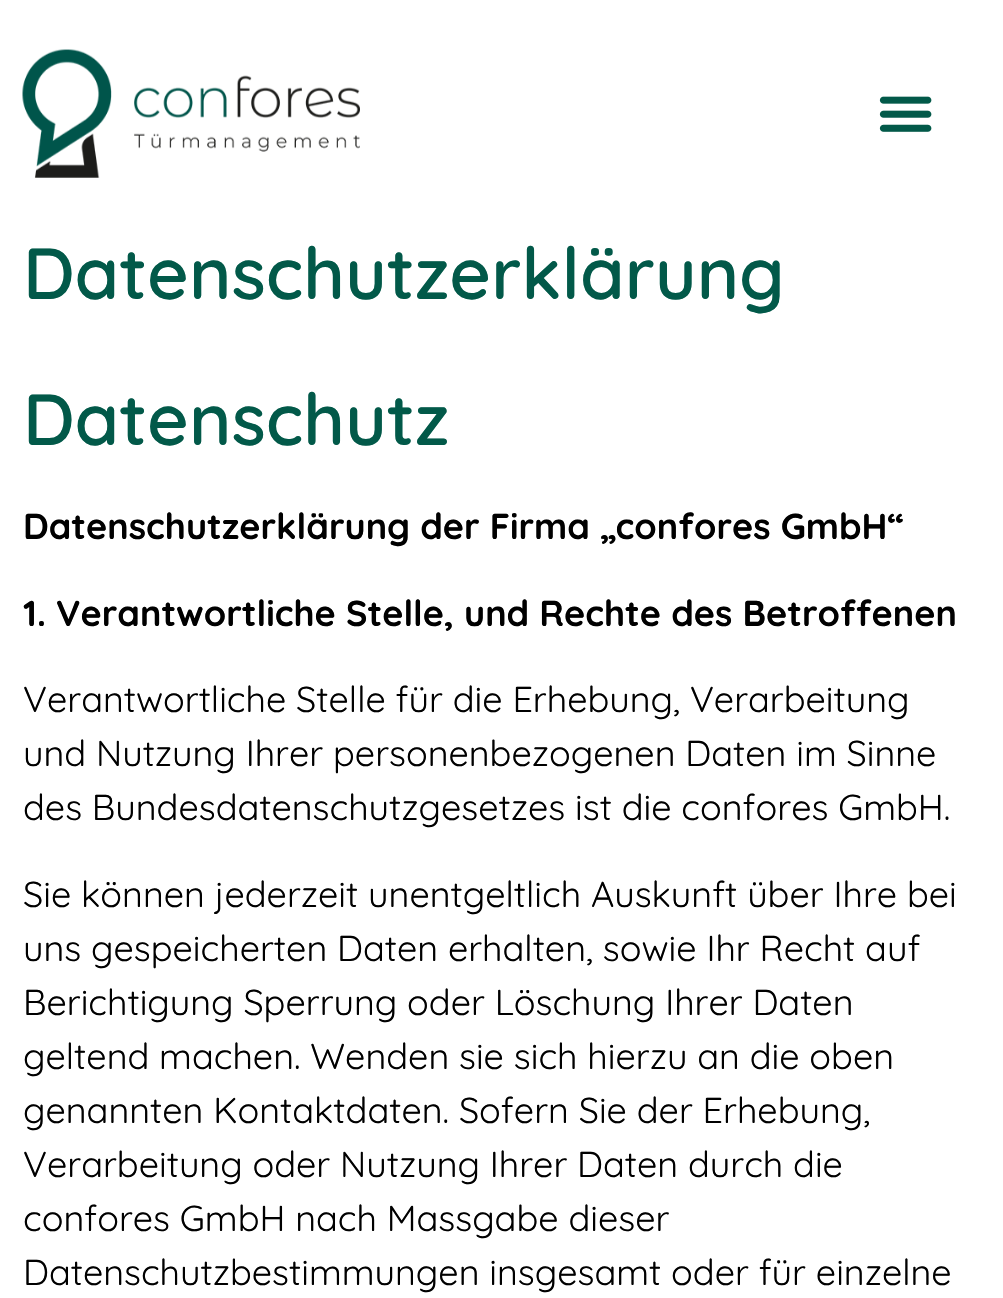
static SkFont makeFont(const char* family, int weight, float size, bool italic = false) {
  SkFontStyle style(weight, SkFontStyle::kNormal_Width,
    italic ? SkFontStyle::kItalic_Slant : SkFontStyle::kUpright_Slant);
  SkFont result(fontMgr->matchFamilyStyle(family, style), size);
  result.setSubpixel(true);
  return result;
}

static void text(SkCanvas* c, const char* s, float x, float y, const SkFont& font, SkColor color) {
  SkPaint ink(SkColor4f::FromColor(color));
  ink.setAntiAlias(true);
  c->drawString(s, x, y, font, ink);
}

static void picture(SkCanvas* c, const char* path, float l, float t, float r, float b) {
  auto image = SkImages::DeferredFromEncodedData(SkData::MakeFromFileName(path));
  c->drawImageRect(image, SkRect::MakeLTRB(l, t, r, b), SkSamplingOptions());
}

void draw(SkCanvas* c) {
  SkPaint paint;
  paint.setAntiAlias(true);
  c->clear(0xffffffff);
  picture(c, "img_01.png", 22, 49, 360, 178);
  picture(c, "img_02.png", 879, 96, 932, 132);
  SkFont face1 = makeFont("Quicksand", 600, 72);
  text(c, "Datenschutzerklärung", 23, 299, face1, 0xff025949);
  text(c, "Datenschutz", 23, 445, face1, 0xff025949);
  SkFont face2 = makeFont("Quicksand", 700, 36);
  text(c, "Datenschutzerklärung der Firma „confores GmbH“", 23, 539, face2, 0xff000000);
  text(c, "1. Verantwortliche Stelle, und Rechte des Betroffenen", 23, 626, face2, 0xff000000);
  SkFont face3 = makeFont("Quicksand", 400, 36);
  text(c, "Verantwortliche Stelle für die Erhebung, Verarbeitung", 23, 712, face3, 0xff000000);
  text(c, "und Nutzung Ihrer personenbezogenen Daten im Sinne", 23, 766, face3, 0xff000000);
  text(c, "des Bundesdatenschutzgesetzes ist die confores GmbH.", 23, 820, face3, 0xff000000);
  text(c, "Sie können jederzeit unentgeltlich Auskunft über Ihre bei", 23, 907, face3, 0xff000000);
  text(c, "uns gespeicherten Daten erhalten, sowie Ihr Recht auf", 23, 961, face3, 0xff000000);
  text(c, "Berichtigung Sperrung oder Löschung Ihrer Daten", 23, 1015, face3, 0xff000000);
  text(c, "geltend machen. Wenden sie sich hierzu an die oben", 23, 1069, face3, 0xff000000);
  text(c, "genannten Kontaktdaten. Sofern Sie der Erhebung,", 23, 1123, face3, 0xff000000);
  text(c, "Verarbeitung oder Nutzung Ihrer Daten durch die", 23, 1177, face3, 0xff000000);
  text(c, "confores GmbH nach Massgabe dieser", 23, 1231, face3, 0xff000000);
  text(c, "Datenschutzbestimmungen insgesamt oder für einzelne", 23, 1285, face3, 0xff000000);
}
